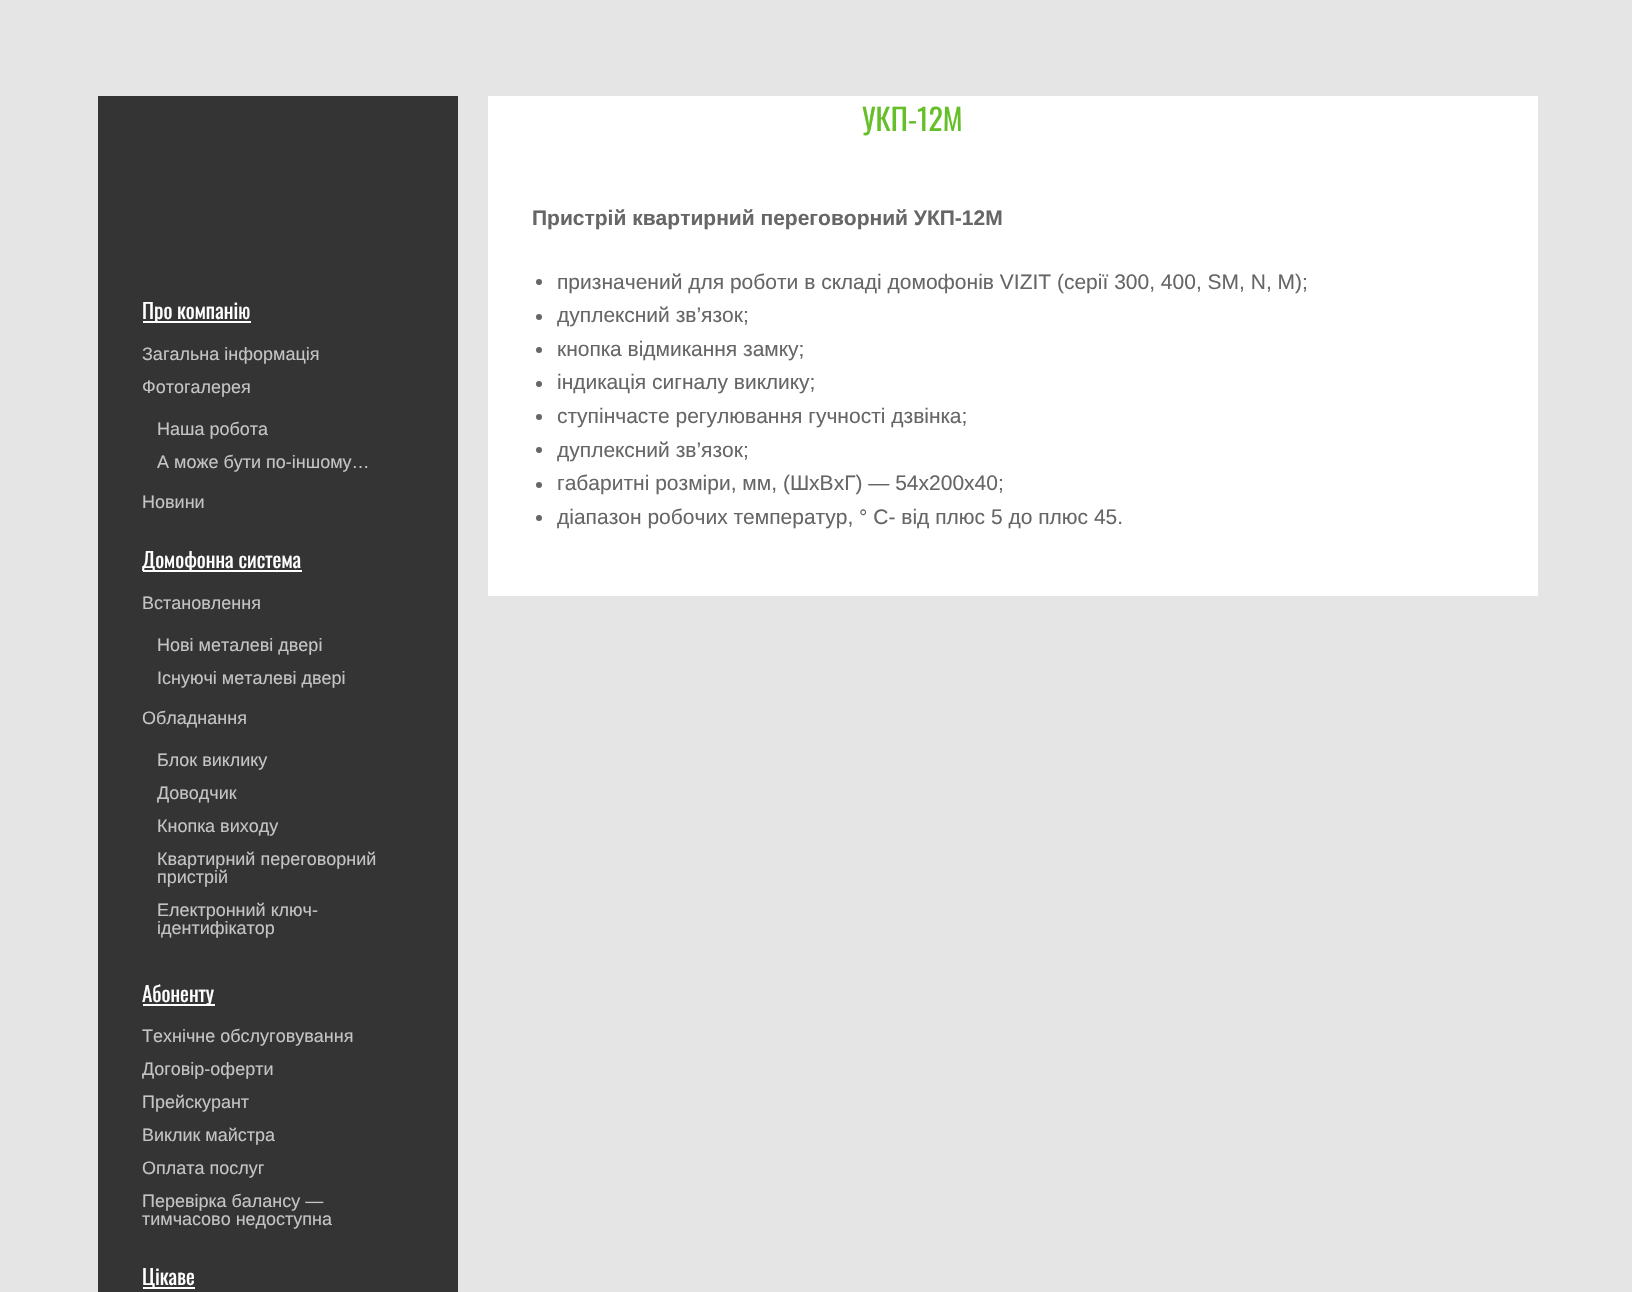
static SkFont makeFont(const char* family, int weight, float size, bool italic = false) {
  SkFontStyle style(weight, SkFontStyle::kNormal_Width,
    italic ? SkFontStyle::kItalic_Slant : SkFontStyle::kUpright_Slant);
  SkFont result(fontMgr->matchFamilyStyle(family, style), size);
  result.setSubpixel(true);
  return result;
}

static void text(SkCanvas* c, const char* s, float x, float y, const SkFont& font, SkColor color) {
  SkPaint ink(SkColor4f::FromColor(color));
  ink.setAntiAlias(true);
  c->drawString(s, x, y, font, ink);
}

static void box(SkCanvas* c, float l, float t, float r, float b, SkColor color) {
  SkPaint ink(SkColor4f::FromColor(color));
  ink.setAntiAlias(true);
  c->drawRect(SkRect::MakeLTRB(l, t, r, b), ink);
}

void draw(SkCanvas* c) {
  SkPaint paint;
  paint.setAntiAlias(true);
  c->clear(0xffe5e5e5);
  box(c, 98, 96, 458, 1292, 0xff343434);
  box(c, 143, 321, 251, 323, 0xffffffff);
  SkFont face1 = makeFont("Oswald", 400, 21);
  text(c, "Про компанію", 142, 319, face1, 0xffffffff);
  SkFont face2 = makeFont("Liberation Sans", 400, 18);
  text(c, "Загальна інформація", 142, 360, face2, 0xffc4c4c4);
  text(c, "Фотогалерея", 142, 393, face2, 0xffc4c4c4);
  text(c, "Наша робота", 157, 435, face2, 0xffc4c4c4);
  text(c, "А може бути по-іншому…", 157, 468, face2, 0xffc4c4c4);
  text(c, "Новини", 142, 508, face2, 0xffc4c4c4);
  box(c, 143, 570, 302, 572, 0xffffffff);
  text(c, "Домофонна система", 142, 568, face1, 0xffffffff);
  text(c, "Встановлення", 142, 609, face2, 0xffc4c4c4);
  text(c, "Нові металеві двері", 157, 651, face2, 0xffc4c4c4);
  text(c, "Існуючі металеві двері", 157, 684, face2, 0xffc4c4c4);
  text(c, "Обладнання", 142, 724, face2, 0xffc4c4c4);
  text(c, "Блок виклику", 157, 766, face2, 0xffc4c4c4);
  text(c, "Доводчик", 157, 799, face2, 0xffc4c4c4);
  text(c, "Кнопка виходу", 157, 832, face2, 0xffc4c4c4);
  text(c, "Квартирний переговорний", 157, 865, face2, 0xffc4c4c4);
  text(c, "пристрій", 157, 883, face2, 0xffc4c4c4);
  text(c, "Електронний ключ-", 157, 916, face2, 0xffc4c4c4);
  text(c, "ідентифікатор", 157, 934, face2, 0xffc4c4c4);
  box(c, 143, 1004, 215, 1006, 0xffffffff);
  text(c, "Абоненту", 142, 1002, face1, 0xffffffff);
  text(c, "Технічне обслуговування", 142, 1042, face2, 0xffc4c4c4);
  text(c, "Договір-оферти", 142, 1075, face2, 0xffc4c4c4);
  text(c, "Прейскурант", 142, 1108, face2, 0xffc4c4c4);
  text(c, "Виклик майстра", 142, 1141, face2, 0xffc4c4c4);
  text(c, "Оплата послуг", 142, 1174, face2, 0xffc4c4c4);
  text(c, "Перевірка балансу —", 142, 1207, face2, 0xffc4c4c4);
  text(c, "тимчасово недоступна", 142, 1225, face2, 0xffc4c4c4);
  box(c, 143, 1287, 195, 1289, 0xffffffff);
  text(c, "Цікаве", 142, 1285, face1, 0xffffffff);
  box(c, 488, 96, 1538, 596, 0xffffffff);
  SkFont face3 = makeFont("Oswald", 400, 30);
  text(c, "УКП-12M", 862, 131, face3, 0xff65bf28);
  SkFont face4 = makeFont("Liberation Sans", 700, 21);
  text(c, "Пристрій квартирний переговорний УКП-12M", 532, 225, face4, 0xff666666);
  paint.setColor(0xff666666);
  c->drawCircle(539, 282, 3, paint);
  SkFont face5 = makeFont("Liberation Sans", 400, 21);
  text(c, "призначений для роботи в складі домофонів VIZIT (серії 300, 400, SM, N, M);", 557, 289, face5, 0xff666666);
  c->drawCircle(539, 317, 3, paint);
  text(c, "дуплексний зв’язок;", 557, 322, face5, 0xff666666);
  c->drawCircle(539, 350, 3, paint);
  text(c, "кнопка відмикання замку;", 557, 356, face5, 0xff666666);
  c->drawCircle(539, 384, 3, paint);
  text(c, "індикація сигналу виклику;", 557, 389, face5, 0xff666666);
  c->drawCircle(539, 417, 3, paint);
  text(c, "ступінчасте регулювання гучності дзвінка;", 557, 423, face5, 0xff666666);
  c->drawCircle(539, 450, 3, paint);
  text(c, "дуплексний зв’язок;", 557, 457, face5, 0xff666666);
  c->drawCircle(539, 485, 3, paint);
  text(c, "габаритні розміри, мм, (ШхВхГ) — 54х200х40;", 557, 490, face5, 0xff666666);
  c->drawCircle(539, 518, 3, paint);
  text(c, "діапазон робочих температур, ° C- від плюс 5 до плюс 45.", 557, 524, face5, 0xff666666);
}
